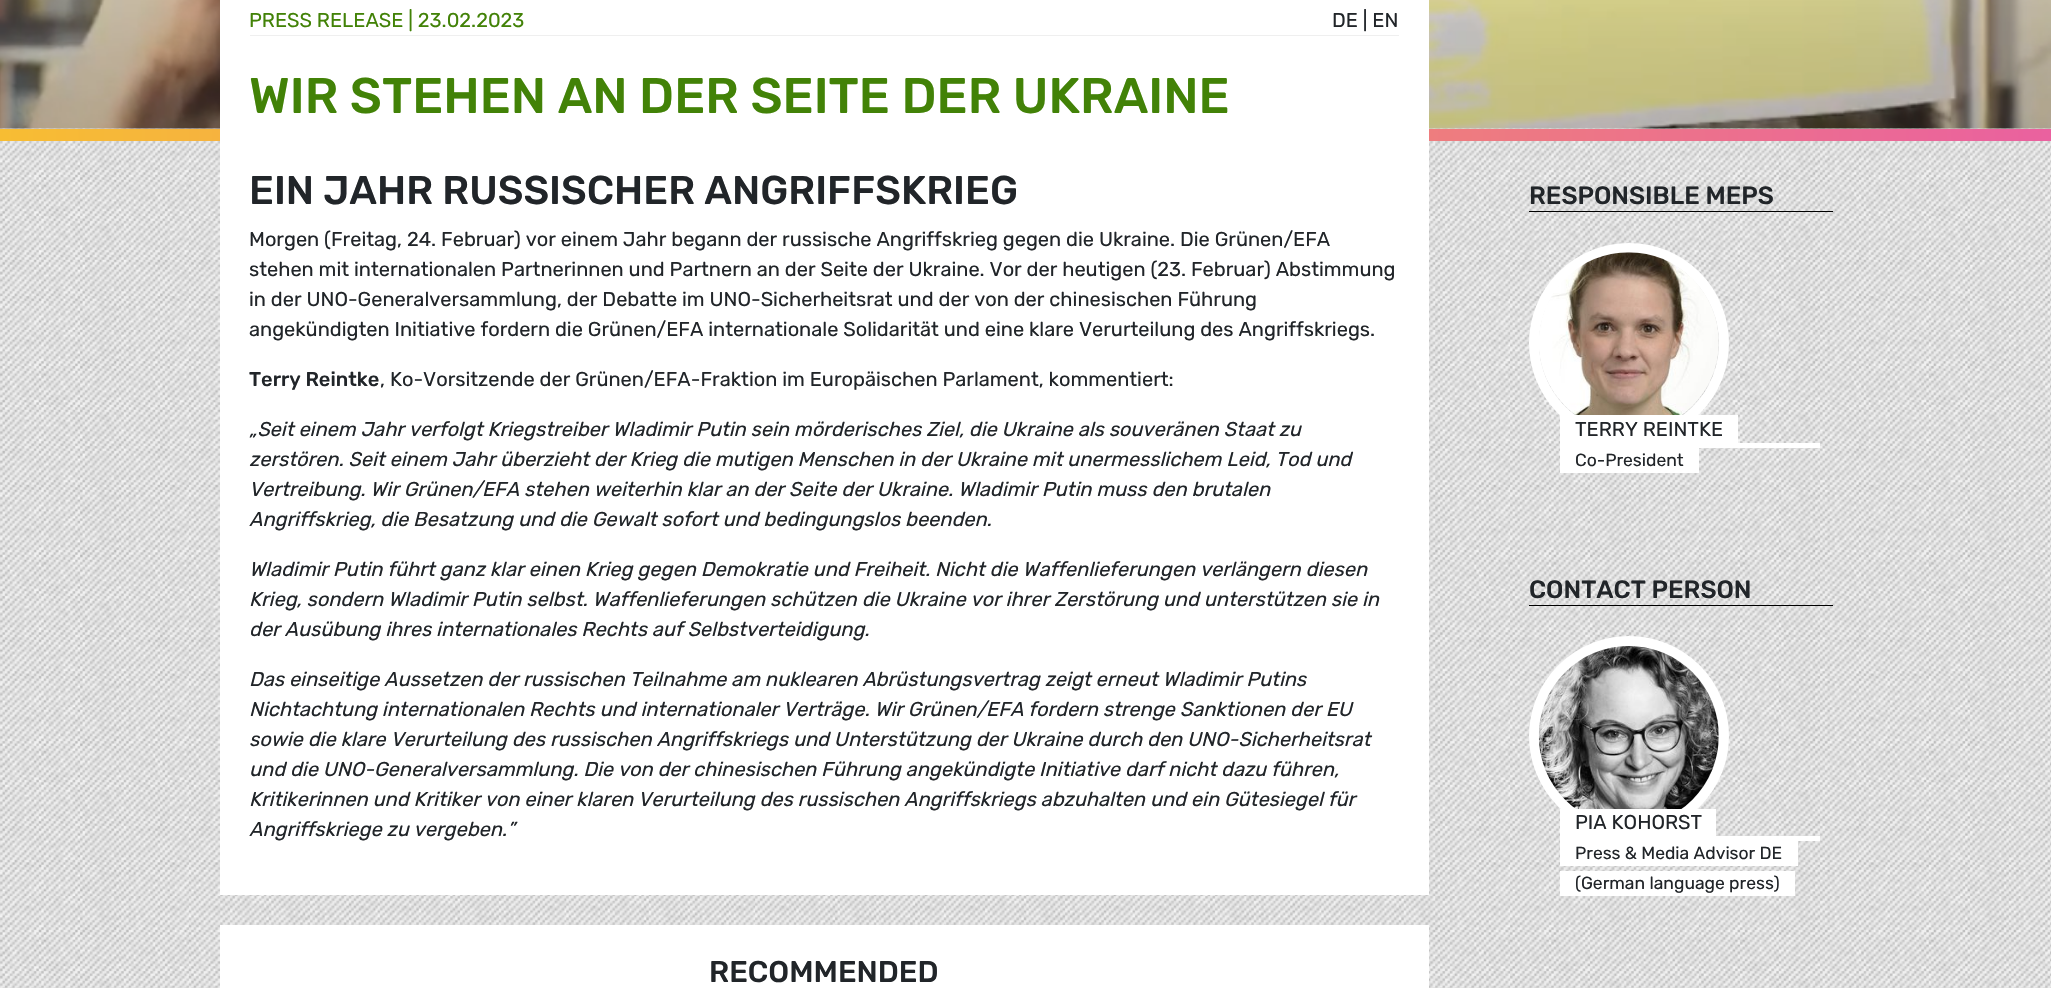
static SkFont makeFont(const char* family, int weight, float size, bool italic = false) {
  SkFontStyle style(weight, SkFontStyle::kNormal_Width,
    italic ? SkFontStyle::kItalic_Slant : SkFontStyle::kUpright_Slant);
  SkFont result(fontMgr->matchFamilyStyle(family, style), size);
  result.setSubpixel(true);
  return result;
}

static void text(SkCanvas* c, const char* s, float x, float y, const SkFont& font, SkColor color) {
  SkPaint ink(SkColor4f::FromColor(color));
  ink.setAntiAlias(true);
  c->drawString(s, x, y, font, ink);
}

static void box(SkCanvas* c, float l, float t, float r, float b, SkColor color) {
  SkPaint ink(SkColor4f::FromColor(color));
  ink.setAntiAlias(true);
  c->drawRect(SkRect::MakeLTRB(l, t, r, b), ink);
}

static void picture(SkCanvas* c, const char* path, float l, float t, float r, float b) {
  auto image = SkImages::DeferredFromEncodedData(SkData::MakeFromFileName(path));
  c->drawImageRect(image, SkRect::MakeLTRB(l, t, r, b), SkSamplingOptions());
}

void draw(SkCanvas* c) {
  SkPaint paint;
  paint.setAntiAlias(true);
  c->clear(0xffffffff);
  picture(c, "img_01.png", 0, 128, 2051, 129);
  picture(c, "img_02.png", 0, 0, 2051, 129);
  picture(c, "img_03.png", 0, 141, 2051, 988);
  {
    const SkColor colors[] = {0xfff7bd33, 0xffea619f};
    const float stops[] = {0, 1};
    const SkPoint ends[] = {{0, 135}, {2051, 135}};
    paint.setShader(SkGradientShader::MakeLinear(ends, colors, stops, 2, SkTileMode::kClamp));
    paint.setAlpha(255);
  }
  c->drawRect(SkRect::MakeLTRB(0, 129, 2051, 141), paint);
  box(c, 220, 0, 1429, 895, 0xffffffff);
  box(c, 250, 35, 1399, 36, 0xffefefef);
  SkFont face1 = makeFont("Rubik", 400, 20);
  text(c, "PRESS RELEASE | 23.02.2023", 249, 27, face1, 0xff428207);
  text(c, "DE | EN", 1332, 27, face1, 0xff212529);
  SkFont face2 = makeFont("Rubik", 500, 50);
  text(c, "WIR STEHEN AN DER SEITE DER UKRAINE", 249, 113, face2, 0xff428207);
  SkFont face3 = makeFont("Rubik", 500, 40);
  text(c, "EIN JAHR RUSSISCHER ANGRIFFSKRIEG", 249, 204, face3, 0xff212529);
  text(c, "Morgen (Freitag, 24. Februar) vor einem Jahr begann der russische Angriffskrieg gegen die Ukraine. Die Grünen/EFA", 249, 246, face1, 0xff212529);
  text(c, "stehen mit internationalen Partnerinnen und Partnern an der Seite der Ukraine. Vor der heutigen (23. Februar) Abstimmung", 249, 276, face1, 0xff212529);
  text(c, "in der UNO-Generalversammlung, der Debatte im UNO-Sicherheitsrat und der von der chinesischen Führung", 249, 306, face1, 0xff212529);
  text(c, "angekündigten Initiative fordern die Grünen/EFA internationale Solidarität und eine klare Verurteilung des Angriffskriegs.", 249, 336, face1, 0xff212529);
  SkFont face4 = makeFont("Rubik", 500, 20);
  text(c, "Terry Reintke", 249, 386, face4, 0xff212529);
  text(c, ", Ko-Vorsitzende der Grünen/EFA-Fraktion im Europäischen Parlament, kommentiert:", 380, 386, face1, 0xff212529);
  SkFont face5 = makeFont("Rubik", 400, 20, true);
  text(c, "„Seit einem Jahr verfolgt Kriegstreiber Wladimir Putin sein mörderisches Ziel, die Ukraine als souveränen Staat zu", 249, 436, face5, 0xff212529);
  text(c, "zerstören. Seit einem Jahr überzieht der Krieg die mutigen Menschen in der Ukraine mit unermesslichem Leid, Tod und", 249, 466, face5, 0xff212529);
  text(c, "Vertreibung. Wir Grünen/EFA stehen weiterhin klar an der Seite der Ukraine. Wladimir Putin muss den brutalen", 249, 496, face5, 0xff212529);
  text(c, "Angriffskrieg, die Besatzung und die Gewalt sofort und bedingungslos beenden.", 249, 526, face5, 0xff212529);
  text(c, "Wladimir Putin führt ganz klar einen Krieg gegen Demokratie und Freiheit. Nicht die Waffenlieferungen verlängern diesen", 249, 576, face5, 0xff212529);
  text(c, "Krieg, sondern Wladimir Putin selbst. Waffenlieferungen schützen die Ukraine vor ihrer Zerstörung und unterstützen sie in", 249, 606, face5, 0xff212529);
  text(c, "der Ausübung ihres internationales Rechts auf Selbstverteidigung.", 249, 636, face5, 0xff212529);
  text(c, "Das einseitige Aussetzen der russischen Teilnahme am nuklearen Abrüstungsvertrag zeigt erneut Wladimir Putins", 249, 686, face5, 0xff212529);
  text(c, "Nichtachtung internationalen Rechts und internationaler Verträge. Wir Grünen/EFA fordern strenge Sanktionen der EU", 249, 716, face5, 0xff212529);
  text(c, "sowie die klare Verurteilung des russischen Angriffskriegs und Unterstützung der Ukraine durch den UNO-Sicherheitsrat", 249, 746, face5, 0xff212529);
  text(c, "und die UNO-Generalversammlung. Die von der chinesischen Führung angekündigte Initiative darf nicht dazu führen,", 249, 776, face5, 0xff212529);
  text(c, "Kritikerinnen und Kritiker von einer klaren Verurteilung des russischen Angriffskriegs abzuhalten und ein Gütesiegel für", 249, 806, face5, 0xff212529);
  text(c, "Angriffskriege zu vergeben.”", 249, 836, face5, 0xff212529);
  box(c, 220, 925, 1429, 988, 0xffffffff);
  SkFont face6 = makeFont("Rubik", 500, 30);
  text(c, "RECOMMENDED", 709, 982, face6, 0xff212529);
  box(c, 1529, 211, 1833, 212, 0xff000000);
  SkFont face7 = makeFont("Rubik", 500, 25);
  text(c, "RESPONSIBLE MEPS", 1529, 204, face7, 0xff212529);
  paint.setStyle(SkPaint::kStroke_Style);
  paint.setStrokeWidth(10);
  paint.setShader(nullptr);
  paint.setColor(0xffffffff);
  c->drawCircle(1629, 343, 95, paint);
  picture(c, "img_04.png", 1539, 252, 1719, 415);
  box(c, 1575, 415, 1722, 443, 0xffffffff);
  text(c, "TERRY REINTKE", 1575, 436, face1, 0xff212529);
  paint.setStyle(SkPaint::kFill_Style);
  c->drawPath(SkPathBuilder().moveTo(1560, 415).lineTo(1560, 444).lineTo(1708, 444).lineTo(1575, 444).lineTo(1575, 415).close().detach(), paint);
  c->drawPath(SkPathBuilder().moveTo(1590, 444).lineTo(1738, 444).lineTo(1738, 415).lineTo(1722, 415).lineTo(1722, 444).close().detach(), paint);
  c->drawPath(SkPathBuilder().moveTo(1560, 443).lineTo(1560, 448).lineTo(1790, 448).lineTo(1575, 448).lineTo(1575, 443).close().detach(), paint);
  c->drawPath(SkPathBuilder().moveTo(1590, 448).lineTo(1820, 448).lineTo(1820, 443).lineTo(1805, 443).lineTo(1805, 448).close().detach(), paint);
  box(c, 1575, 443, 1805, 448, 0xffffffff);
  c->drawPath(SkPathBuilder().moveTo(1560, 448).lineTo(1560, 473).lineTo(1669, 473).lineTo(1669, 472).lineTo(1575, 472).lineTo(1575, 448).close().detach(), paint);
  c->drawPath(SkPathBuilder().moveTo(1590, 472).lineTo(1590, 473).lineTo(1699, 473).lineTo(1699, 448).lineTo(1684, 448).lineTo(1684, 472).close().detach(), paint);
  box(c, 1575, 448, 1684, 472, 0xffffffff);
  SkFont face8 = makeFont("Rubik", 400, 17.5f);
  text(c, "Co-President", 1575, 466, face8, 0xff212529);
  box(c, 1529, 605, 1833, 606, 0xff000000);
  text(c, "CONTACT PERSON", 1529, 598, face7, 0xff212529);
  paint.setStyle(SkPaint::kStroke_Style);
  c->drawCircle(1629, 736, 95, paint);
  picture(c, "img_05.png", 1538, 646, 1719, 809);
  paint.setStyle(SkPaint::kFill_Style);
  c->drawPath(SkPathBuilder().moveTo(1590, 838).lineTo(1716, 838).lineTo(1716, 809).lineTo(1701, 809).lineTo(1701, 838).close().detach(), paint);
  box(c, 1575, 809, 1701, 836, 0xffffffff);
  text(c, "PIA KOHORST", 1575, 829, face1, 0xff212529);
  c->drawPath(SkPathBuilder().moveTo(1560, 809).lineTo(1560, 838).lineTo(1686, 838).lineTo(1575, 838).lineTo(1575, 809).close().detach(), paint);
  c->drawPath(SkPathBuilder().moveTo(1560, 836).lineTo(1560, 841).lineTo(1575, 841).lineTo(1575, 836).lineTo(1790, 836).close().detach(), paint);
  c->drawPath(SkPathBuilder().moveTo(1590, 836).lineTo(1805, 836).lineTo(1805, 841).lineTo(1820, 841).lineTo(1820, 836).close().detach(), paint);
  box(c, 1575, 836, 1805, 841, 0xffffffff);
  box(c, 1575, 841, 1782, 866, 0xffffffff);
  text(c, "Press & Media Advisor DE", 1575, 859, face8, 0xff212529);
  c->drawPath(SkPathBuilder().moveTo(1560, 841).lineTo(1560, 866).lineTo(1575, 866).lineTo(1575, 841).lineTo(1768, 841).close().detach(), paint);
  c->drawPath(SkPathBuilder().moveTo(1590, 841).lineTo(1782, 841).lineTo(1782, 866).lineTo(1798, 866).lineTo(1798, 841).close().detach(), paint);
  box(c, 1575, 871, 1780, 896, 0xffffffff);
  text(c, "(German language press)", 1575, 889, face8, 0xff212529);
  c->drawPath(SkPathBuilder().moveTo(1560, 871).lineTo(1560, 896).lineTo(1575, 896).lineTo(1575, 871).lineTo(1765, 871).close().detach(), paint);
  c->drawPath(SkPathBuilder().moveTo(1590, 871).lineTo(1780, 871).lineTo(1780, 896).lineTo(1795, 896).lineTo(1795, 871).close().detach(), paint);
}
